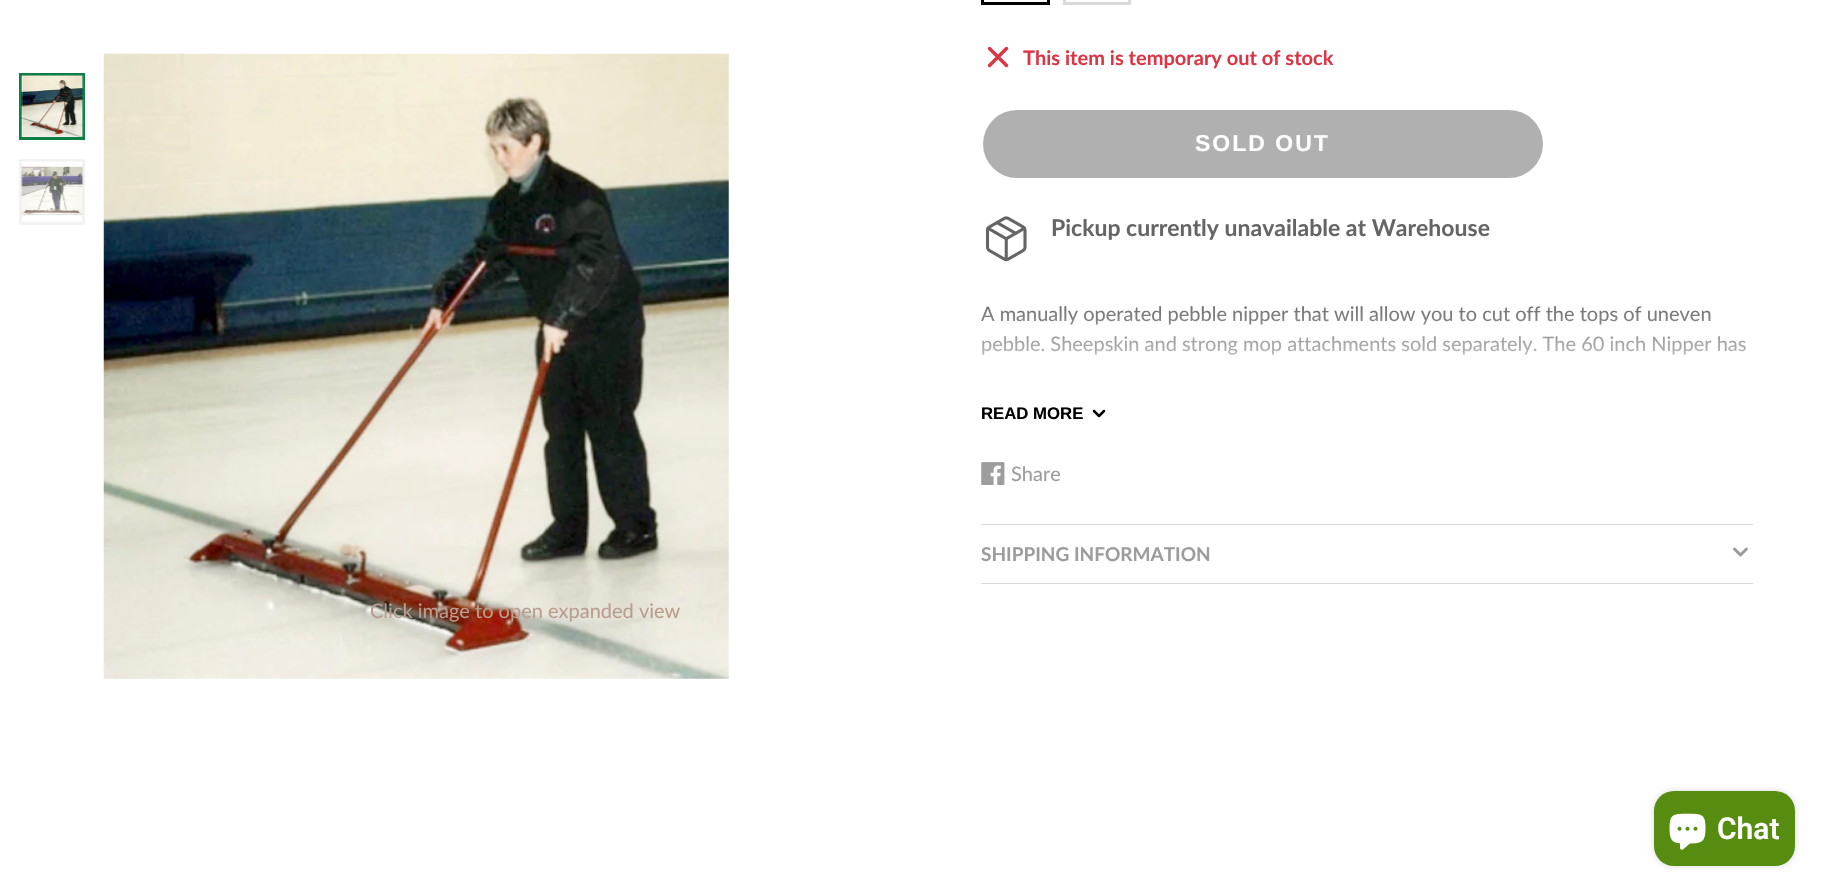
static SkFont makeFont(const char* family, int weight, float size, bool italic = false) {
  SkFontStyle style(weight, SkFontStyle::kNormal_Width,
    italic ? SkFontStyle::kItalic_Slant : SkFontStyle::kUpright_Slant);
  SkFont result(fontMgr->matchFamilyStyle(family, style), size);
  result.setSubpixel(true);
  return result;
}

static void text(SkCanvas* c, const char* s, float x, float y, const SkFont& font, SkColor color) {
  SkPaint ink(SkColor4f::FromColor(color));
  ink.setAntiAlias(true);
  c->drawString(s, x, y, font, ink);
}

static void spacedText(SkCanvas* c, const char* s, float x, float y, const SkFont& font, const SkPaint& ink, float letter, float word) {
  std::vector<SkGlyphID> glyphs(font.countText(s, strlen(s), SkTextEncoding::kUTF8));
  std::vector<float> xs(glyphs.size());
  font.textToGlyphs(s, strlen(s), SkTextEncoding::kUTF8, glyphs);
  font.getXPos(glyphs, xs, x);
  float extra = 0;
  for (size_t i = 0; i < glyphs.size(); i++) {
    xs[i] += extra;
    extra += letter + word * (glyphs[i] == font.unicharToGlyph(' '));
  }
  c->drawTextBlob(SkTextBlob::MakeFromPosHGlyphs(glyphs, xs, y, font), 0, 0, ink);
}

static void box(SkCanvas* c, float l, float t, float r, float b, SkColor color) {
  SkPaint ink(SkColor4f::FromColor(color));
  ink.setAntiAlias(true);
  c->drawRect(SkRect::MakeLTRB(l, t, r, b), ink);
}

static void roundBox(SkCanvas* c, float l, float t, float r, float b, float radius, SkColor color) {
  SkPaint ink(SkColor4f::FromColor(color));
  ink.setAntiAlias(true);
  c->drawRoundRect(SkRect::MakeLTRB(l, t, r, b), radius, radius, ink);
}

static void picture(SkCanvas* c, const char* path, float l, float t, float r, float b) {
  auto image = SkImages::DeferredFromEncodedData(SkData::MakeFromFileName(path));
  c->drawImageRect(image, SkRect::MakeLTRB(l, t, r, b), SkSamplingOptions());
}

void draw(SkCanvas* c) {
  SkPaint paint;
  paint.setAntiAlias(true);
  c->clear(0xffffffff);
  paint.setStyle(SkPaint::kStroke_Style);
  paint.setStrokeWidth(3);
  paint.setColor(0xff000000);
  c->drawRect(SkRect::MakeLTRB(982.5f, -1.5f, 1048.5f, 3.5f), paint);
  paint.setColor(0xffd9d9d9);
  c->drawRect(SkRect::MakeLTRB(1064.5f, -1.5f, 1129.5f, 3.5f), paint);
  paint.setStrokeWidth(3.5f);
  paint.setStrokeCap(SkPaint::kRound_Cap);
  paint.setStrokeJoin(SkPaint::kRound_Join);
  paint.setColor(0xffdc3545);
  c->drawPath(SkPathBuilder().moveTo(1006.5f, 48.5f).lineTo(989.5f, 65.5f).moveTo(989.5f, 48.5f).lineTo(1006.5f, 65.5f).detach(), paint);
  SkFont face1 = makeFont("Lato", 700, 20);
  text(c, "This item is temporary out of stock", 1023, 65, face1, 0xffdc3545);
  roundBox(c, 983, 110, 1543, 178, 34, 0xffb1b0b0);
  SkFont face2 = makeFont("Liberation Sans", 700, 23);
  paint.setStyle(SkPaint::kFill_Style);
  paint.setColor(0xffffffff);
  spacedText(c, "SOLD OUT", 1195, 151, face2, paint, 2, 0);
  picture(c, "img_01.png", 985, 216, 1027, 262);
  SkFont face3 = makeFont("Lato", 700, 23);
  text(c, "Pickup currently unavailable at Warehouse", 1051, 236, face3, 0xff666565);
  SkFont face4 = makeFont("Lato", 400, 20);
  text(c, "A manually operated pebble nipper that will allow you to cut off the tops of uneven", 981, 321, face4, 0xff666565);
  text(c, "pebble. Sheepskin and strong mop attachments sold separately. The 60 inch Nipper has", 981, 351, face4, 0xff666565);
  {
    const SkColor colors[] = {0xffffffff, 0x00ffffff};
    const float stops[] = {0.15f, 1};
    const SkPoint ends[] = {{1367, 424}, {1367, 299}};
    paint.setShader(SkGradientShader::MakeLinear(ends, colors, stops, 2, SkTileMode::kClamp));
    paint.setAlpha(255);
  }
  c->drawRect(SkRect::MakeLTRB(981, 306, 1746, 355), paint);
  SkFont face5 = makeFont("Liberation Sans", 700, 16.75f);
  text(c, "READ MORE", 981, 419, face5, 0xff000000);
  paint.setStyle(SkPaint::kStroke_Style);
  paint.setStrokeWidth(2.5f);
  paint.setShader(nullptr);
  paint.setColor(0xff000000);
  c->drawPath(SkPathBuilder().moveTo(1094, 411).lineTo(1099, 416).lineTo(1104, 411).detach(), paint);
  picture(c, "img_02.png", 981, 462, 1005, 485);
  text(c, "Share", 1011, 481, face4, 0xff9d9c9c);
  box(c, 981, 524, 1753, 525, 0xffd9d9d9);
  SkFont face6 = makeFont("Lato", 700, 19);
  text(c, "SHIPPING INFORMATION", 981, 561, face6, 0xff9d9c9c);
  paint.setStrokeWidth(3);
  paint.setColor(0xff9d9c9c);
  c->drawPath(SkPathBuilder().moveTo(1734.5f, 549).lineTo(1740.5f, 555).lineTo(1746.5f, 549).detach(), paint);
  box(c, 981, 583, 1753, 584, 0xffd9d9d9);
  paint.setStrokeCap(SkPaint::kButt_Cap);
  paint.setStrokeJoin(SkPaint::kMiter_Join);
  paint.setColor(0xff0d7f45);
  c->drawRect(SkRect::MakeLTRB(20.5f, 74.5f, 83.5f, 138.5f), paint);
  picture(c, "img_03.png", 21, 75, 84, 137);
  paint.setColor(0xfff2f2f2);
  c->drawRect(SkRect::MakeLTRB(20.5f, 160.5f, 83.5f, 223.5f), paint);
  picture(c, "img_04.png", 21, 161, 84, 216);
  picture(c, "img_05.png", 103, 53, 729, 679);
  text(c, "Click image to open expanded view", 370, 618, face4, 0xffb99e8f);
  paint.setStyle(SkPaint::kFill_Style);
  paint.setColor(0x26000000);
  paint.setMaskFilter(SkMaskFilter::MakeBlur(kNormal_SkBlurStyle, 3));
  c->drawRoundRect(SkRect::MakeLTRB(1654, 791, 1795, 866), 20, 20, paint);
  paint.setMaskFilter(nullptr);
  roundBox(c, 1654, 791, 1795, 866, 20, 0xff568c10);
  picture(c, "img_06.png", 1669, 813, 1706, 850);
  SkFont face7 = makeFont("Roboto", 600, 30);
  text(c, "Chat", 1717, 839, face7, 0xffffffff);
}
